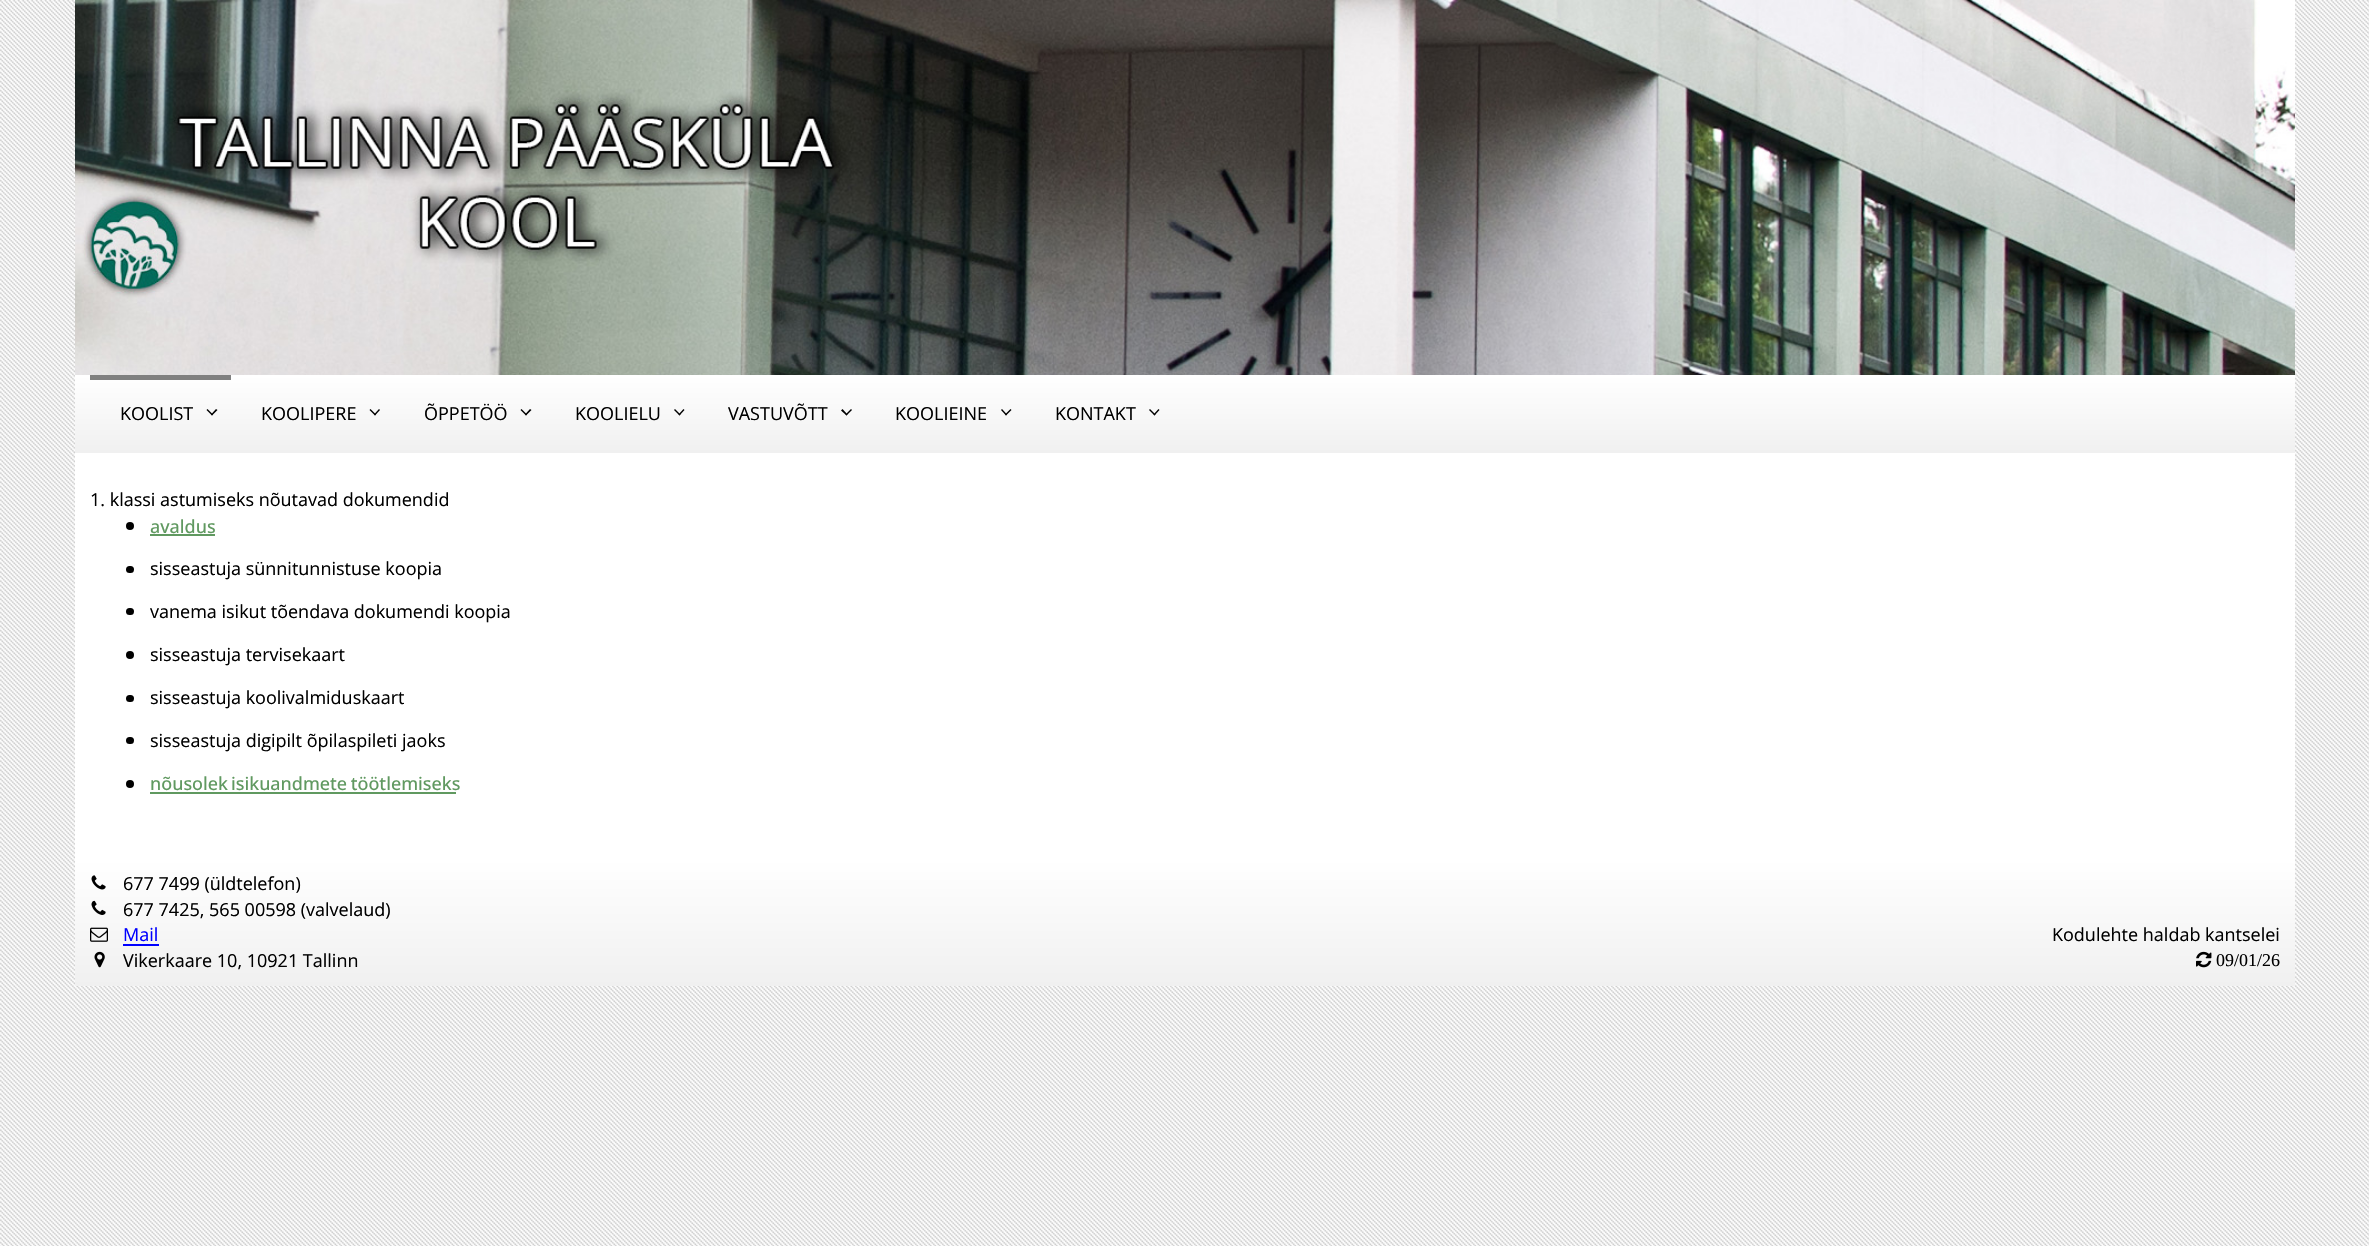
static SkFont makeFont(const char* family, int weight, float size, bool italic = false) {
  SkFontStyle style(weight, SkFontStyle::kNormal_Width,
    italic ? SkFontStyle::kItalic_Slant : SkFontStyle::kUpright_Slant);
  SkFont result(fontMgr->matchFamilyStyle(family, style), size);
  result.setSubpixel(true);
  return result;
}

static void text(SkCanvas* c, const char* s, float x, float y, const SkFont& font, SkColor color) {
  SkPaint ink(SkColor4f::FromColor(color));
  ink.setAntiAlias(true);
  c->drawString(s, x, y, font, ink);
}

static void spacedText(SkCanvas* c, const char* s, float x, float y, const SkFont& font, const SkPaint& ink, float letter, float word) {
  std::vector<SkGlyphID> glyphs(font.countText(s, strlen(s), SkTextEncoding::kUTF8));
  std::vector<float> xs(glyphs.size());
  font.textToGlyphs(s, strlen(s), SkTextEncoding::kUTF8, glyphs);
  font.getXPos(glyphs, xs, x);
  float extra = 0;
  for (size_t i = 0; i < glyphs.size(); i++) {
    xs[i] += extra;
    extra += letter + word * (glyphs[i] == font.unicharToGlyph(' '));
  }
  c->drawTextBlob(SkTextBlob::MakeFromPosHGlyphs(glyphs, xs, y, font), 0, 0, ink);
}

static void box(SkCanvas* c, float l, float t, float r, float b, SkColor color) {
  SkPaint ink(SkColor4f::FromColor(color));
  ink.setAntiAlias(true);
  c->drawRect(SkRect::MakeLTRB(l, t, r, b), ink);
}

static void roundBox(SkCanvas* c, float l, float t, float r, float b, float radius, SkColor color) {
  SkPaint ink(SkColor4f::FromColor(color));
  ink.setAntiAlias(true);
  c->drawRoundRect(SkRect::MakeLTRB(l, t, r, b), radius, radius, ink);
}

static void picture(SkCanvas* c, const char* path, float l, float t, float r, float b) {
  auto image = SkImages::DeferredFromEncodedData(SkData::MakeFromFileName(path));
  c->drawImageRect(image, SkRect::MakeLTRB(l, t, r, b), SkSamplingOptions());
}

void draw(SkCanvas* c) {
  SkPaint paint;
  paint.setAntiAlias(true);
  c->clear(0xffffffff);
  picture(c, "img_01.png", 0, 0, 2369, 1246);
  picture(c, "img_02.png", 75, 0, 2295, 375);
  {
    const SkColor colors[] = {0xffffffff, 0xfff0f0f0};
    const float stops[] = {0, 1};
    const SkPoint ends[] = {{1185, 375}, {1185, 453}};
    paint.setShader(SkGradientShader::MakeLinear(ends, colors, stops, 2, SkTileMode::kClamp));
    paint.setAlpha(255);
  }
  c->drawRect(SkRect::MakeLTRB(75, 375, 2295, 453), paint);
  box(c, 90, 375, 231, 380, 0xff808080);
  SkFont face1 = makeFont("Open Sans", 400, 18);
  text(c, "KOOLIST", 120, 420, face1, 0xff000000);
  paint.setShader(nullptr);
  paint.setColor(0xff000000);
  c->drawPath(SkPathBuilder().moveTo(216, 409).lineTo(217.5f, 410).lineTo(212, 415.5f).lineTo(211, 414.5f).close().detach(), paint);
  c->drawPath(SkPathBuilder().moveTo(207.5f, 409).lineTo(213, 414.5f).lineTo(212, 415.5f).lineTo(206.5f, 410).close().detach(), paint);
  text(c, "KOOLIPERE", 261, 420, face1, 0xff000000);
  c->drawPath(SkPathBuilder().moveTo(379, 409).lineTo(380, 410).lineTo(375, 415.5f).lineTo(374, 414.5f).close().detach(), paint);
  c->drawPath(SkPathBuilder().moveTo(370.5f, 409).lineTo(376, 414.5f).lineTo(375, 415.5f).lineTo(369.5f, 410).close().detach(), paint);
  text(c, "ÕPPETÖÖ", 424, 420, face1, 0xff000000);
  c->drawPath(SkPathBuilder().moveTo(530, 409).lineTo(531.5f, 410).lineTo(526, 415.5f).lineTo(525, 414.5f).close().detach(), paint);
  c->drawPath(SkPathBuilder().moveTo(521.5f, 409).lineTo(527, 414.5f).lineTo(526, 415.5f).lineTo(520.5f, 410).close().detach(), paint);
  text(c, "KOOLIELU", 575, 420, face1, 0xff000000);
  c->drawPath(SkPathBuilder().moveTo(683.5f, 409).lineTo(684.5f, 410).lineTo(679.5f, 415.5f).lineTo(678.5f, 414.5f).close().detach(), paint);
  c->drawPath(SkPathBuilder().moveTo(675, 409).lineTo(680.5f, 414.5f).lineTo(679.5f, 415.5f).lineTo(674, 410).close().detach(), paint);
  text(c, "VASTUVÕTT", 728, 420, face1, 0xff000000);
  c->drawPath(SkPathBuilder().moveTo(851, 409).lineTo(852, 410).lineTo(846.5f, 415.5f).lineTo(845.5f, 414.5f).close().detach(), paint);
  c->drawPath(SkPathBuilder().moveTo(842.5f, 409).lineTo(847.5f, 414.5f).lineTo(846.5f, 415.5f).lineTo(841, 410.5f).close().detach(), paint);
  text(c, "KOOLIEINE", 895, 420, face1, 0xff000000);
  c->drawPath(SkPathBuilder().moveTo(1010.5f, 409).lineTo(1011.5f, 410).lineTo(1006, 415.5f).lineTo(1005, 414.5f).close().detach(), paint);
  c->drawPath(SkPathBuilder().moveTo(1002, 409).lineTo(1007, 414.5f).lineTo(1006, 415.5f).lineTo(1001, 410).close().detach(), paint);
  text(c, "KONTAKT", 1055, 420, face1, 0xff000000);
  c->drawPath(SkPathBuilder().moveTo(1158.5f, 409).lineTo(1159.5f, 410).lineTo(1154.5f, 415.5f).lineTo(1153.5f, 414.5f).close().detach(), paint);
  c->drawPath(SkPathBuilder().moveTo(1150, 409).lineTo(1155.5f, 414.5f).lineTo(1154.5f, 415.5f).lineTo(1149, 410).close().detach(), paint);
  box(c, 75, 453, 2295, 860, 0xffffffff);
  text(c, "1. klassi astumiseks nõutavad dokumendid", 90, 506, face1, 0xff000000);
  c->drawCircle(130, 526, 4, paint);
  SkFont face2 = makeFont("Open Sans", 500, 18);
  text(c, "avaldus", 150, 533, face2, 0xff609960);
  box(c, 150, 534, 215, 536, 0xff609960);
  roundBox(c, 126, 566, 134, 573, 3.5f, 0xff000000);
  text(c, "sisseastuja sünnitunnistuse koopia", 150, 575, face1, 0xff000000);
  roundBox(c, 126, 608, 134, 615, 3.5f, 0xff000000);
  text(c, "vanema isikut tõendava dokumendi koopia", 150, 618, face1, 0xff000000);
  c->drawCircle(130, 655, 4, paint);
  text(c, "sisseastuja tervisekaart", 150, 661, face1, 0xff000000);
  roundBox(c, 126, 695, 134, 702, 3.5f, 0xff000000);
  text(c, "sisseastuja koolivalmiduskaart", 150, 704, face1, 0xff000000);
  roundBox(c, 126, 737, 134, 744, 3.5f, 0xff000000);
  text(c, "sisseastuja digipilt õpilaspileti jaoks", 150, 747, face1, 0xff000000);
  c->drawCircle(130, 784, 4, paint);
  text(c, "nõusolek", 150, 790, face2, 0xff609960);
  box(c, 150, 792, 456, 794, 0xff609960);
  paint.setColor(0xff609960);
  spacedText(c, "isikuandmete töötlemiseks", 231, 790, face2, paint, 0, -1);
  {
    const SkColor colors[] = {0xffffffff, 0xfff0f0f0};
    const float stops[] = {0, 1};
    const SkPoint ends[] = {{1185, 859}, {1185, 986}};
    paint.setShader(SkGradientShader::MakeLinear(ends, colors, stops, 2, SkTileMode::kClamp));
    paint.setAlpha(255);
  }
  c->drawRect(SkRect::MakeLTRB(75, 860, 2295, 986), paint);
  picture(c, "img_03.png", 91, 875, 106, 890);
  text(c, "677 7499 (üldtelefon)", 123, 890, face1, 0xff000000);
  picture(c, "img_04.png", 91, 900, 106, 915);
  text(c, "677 7425, 565 00598 (valvelaud)", 123, 916, face1, 0xff000000);
  picture(c, "img_05.png", 90, 927, 108, 942);
  text(c, "Mail", 123, 941, face1, 0xff0000ff);
  box(c, 123, 944, 159, 946, 0xff0000ff);
  text(c, "Kodulehte haldab kantselei", 2052, 941, face1, 0xff000000);
  picture(c, "img_06.png", 94, 951, 105, 968);
  text(c, "Vikerkaare 10, 10921 Tallinn", 123, 967, face1, 0xff000000);
  picture(c, "img_07.png", 2196, 951, 2212, 968);
  SkFont face3 = makeFont("Liberation Serif", 400, 18);
  text(c, "09/01/26", 2216, 966, face3, 0xff000000);
}
